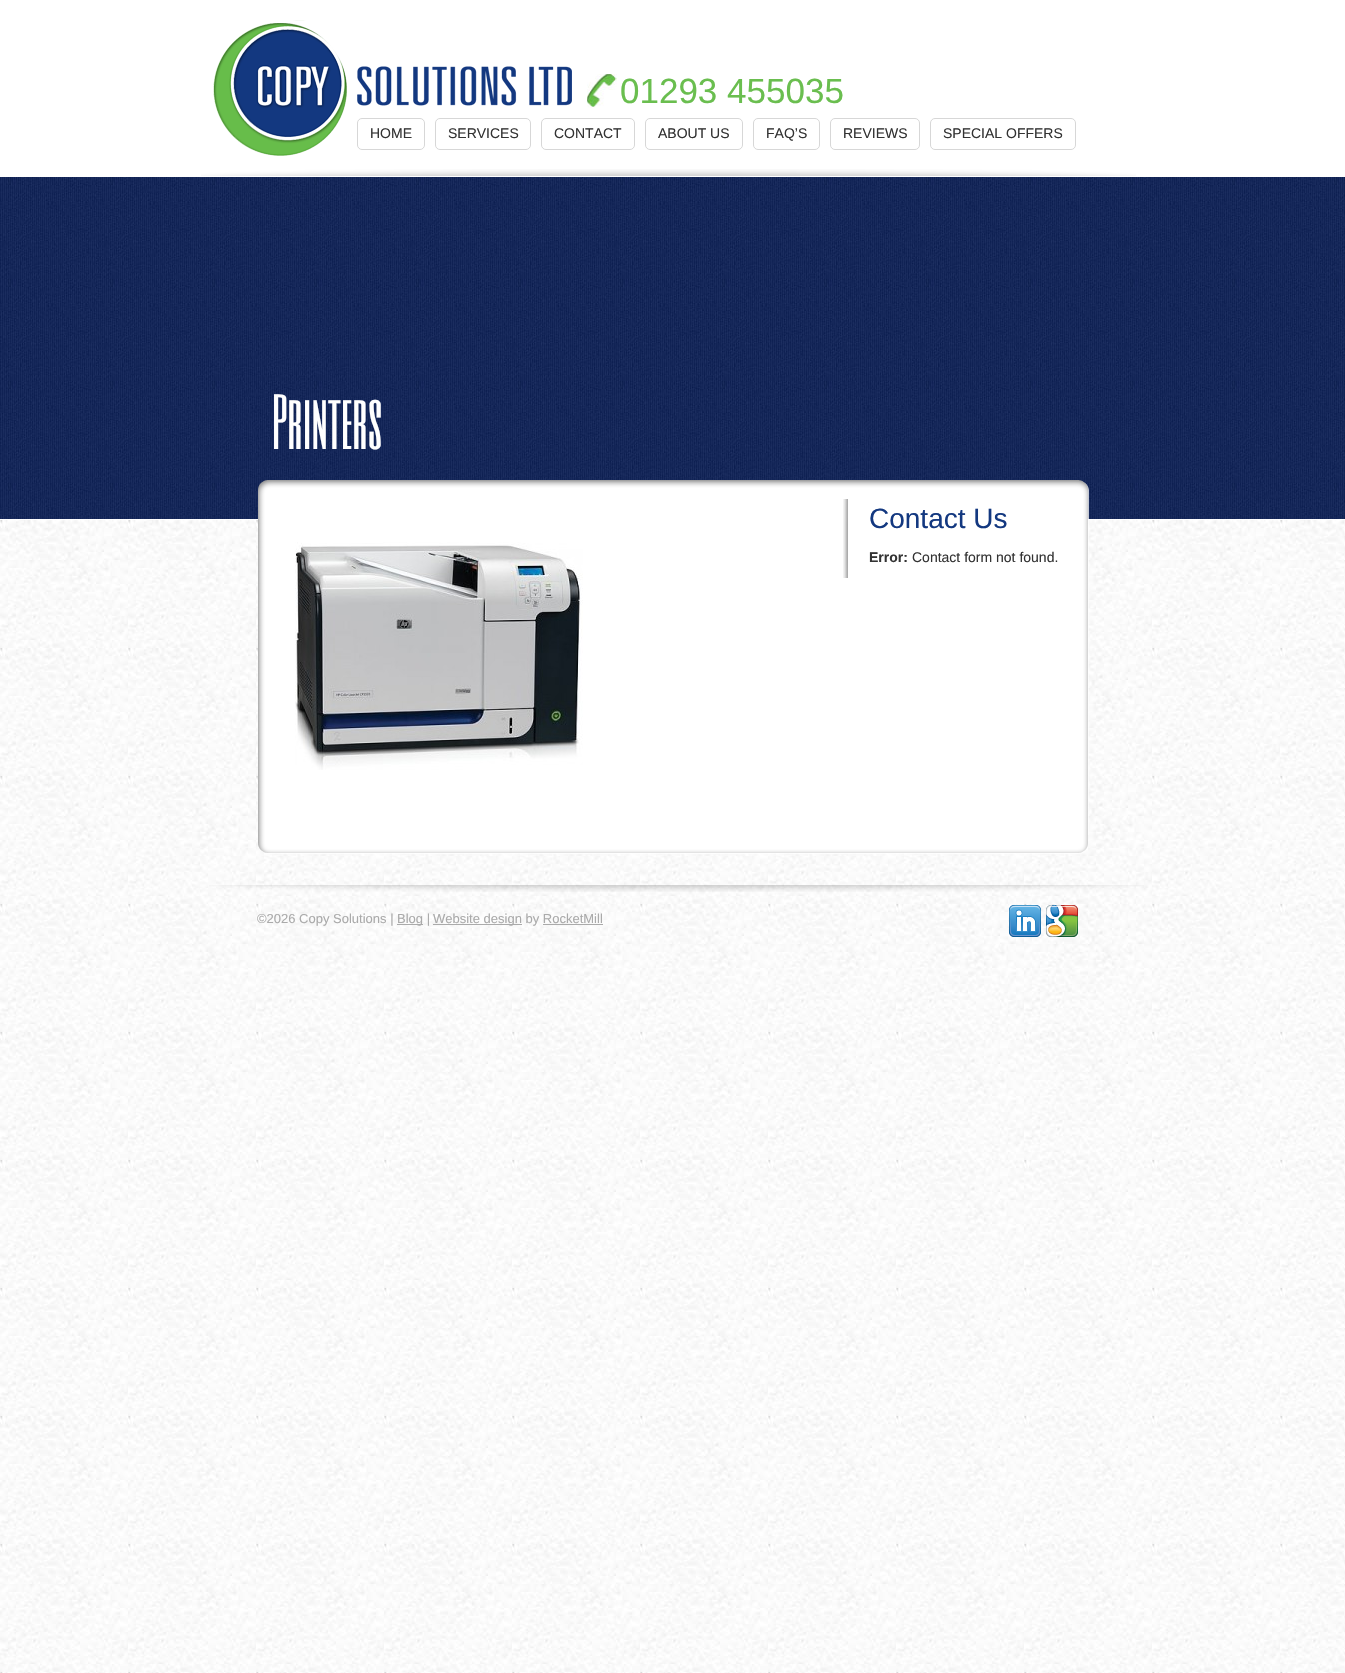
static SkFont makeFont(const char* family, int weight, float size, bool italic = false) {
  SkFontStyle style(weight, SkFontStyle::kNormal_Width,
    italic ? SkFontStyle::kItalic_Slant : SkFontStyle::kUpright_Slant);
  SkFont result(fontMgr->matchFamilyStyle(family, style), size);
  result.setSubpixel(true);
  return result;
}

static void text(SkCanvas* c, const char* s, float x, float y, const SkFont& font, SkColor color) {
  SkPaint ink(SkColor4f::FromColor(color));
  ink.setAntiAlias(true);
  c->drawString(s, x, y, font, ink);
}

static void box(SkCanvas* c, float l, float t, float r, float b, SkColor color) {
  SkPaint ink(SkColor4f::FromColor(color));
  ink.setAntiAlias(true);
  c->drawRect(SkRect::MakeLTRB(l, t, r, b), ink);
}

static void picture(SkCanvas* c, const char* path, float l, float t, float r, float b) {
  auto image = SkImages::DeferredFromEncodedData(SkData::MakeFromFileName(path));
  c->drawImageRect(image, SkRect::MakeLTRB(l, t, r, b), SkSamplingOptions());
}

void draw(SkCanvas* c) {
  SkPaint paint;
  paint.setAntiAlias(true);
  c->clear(0xffffffff);
  picture(c, "img_01.png", 0, 520, 1345, 1673);
  picture(c, "img_02.png", 201, 169, 1136, 176);
  picture(c, "img_03.png", 213, 20, 572, 156);
  picture(c, "img_04.png", 587, 74, 617, 108);
  SkFont face1 = makeFont("Liberation Sans", 400, 35);
  text(c, "01293 455035", 620, 103, face1, 0xff6abe4f);
  paint.setStyle(SkPaint::kStroke_Style);
  paint.setStrokeWidth(1);
  paint.setColor(0xffd7d7d7);
  c->drawRoundRect(SkRect::MakeLTRB(357.5f, 118.5f, 424.5f, 149.5f), 4.5f, 4.5f, paint);
  SkFont face2 = makeFont("Liberation Sans", 400, 14);
  text(c, "HOME", 370, 138, face2, 0xff333333);
  c->drawRoundRect(SkRect::MakeLTRB(435.5f, 118.5f, 530.5f, 149.5f), 4.5f, 4.5f, paint);
  text(c, "SERVICES", 448, 138, face2, 0xff333333);
  c->drawRoundRect(SkRect::MakeLTRB(541.5f, 118.5f, 634.5f, 149.5f), 4.5f, 4.5f, paint);
  text(c, "CONTACT", 554, 138, face2, 0xff333333);
  c->drawRoundRect(SkRect::MakeLTRB(645.5f, 118.5f, 742.5f, 149.5f), 4.5f, 4.5f, paint);
  text(c, "ABOUT US", 658, 138, face2, 0xff333333);
  c->drawRoundRect(SkRect::MakeLTRB(753.5f, 118.5f, 819.5f, 149.5f), 4.5f, 4.5f, paint);
  text(c, "FAQ’S", 766, 138, face2, 0xff333333);
  c->drawRoundRect(SkRect::MakeLTRB(830.5f, 118.5f, 919.5f, 149.5f), 4.5f, 4.5f, paint);
  text(c, "REVIEWS", 843, 138, face2, 0xff333333);
  c->drawRoundRect(SkRect::MakeLTRB(930.5f, 118.5f, 1075.5f, 149.5f), 4.5f, 4.5f, paint);
  text(c, "SPECIAL OFFERS", 943, 138, face2, 0xff333333);
  picture(c, "img_05.png", 0, 177, 1345, 519);
  SkFont face3 = makeFont("Six Caps", 400, 65);
  text(c, "Printers", 272, 449, face3, 0xffffffff);
  picture(c, "img_06.png", 258, 480, 1089, 499);
  picture(c, "img_07.png", 258, 499, 1089, 835);
  picture(c, "img_08.png", 843, 499, 848, 578);
  SkFont face4 = makeFont("Liberation Sans", 400, 28);
  text(c, "Contact Us", 869, 528, face4, 0xff133880);
  SkFont face5 = makeFont("Liberation Sans", 700, 14);
  text(c, "Error:", 869, 562, face5, 0xff333333);
  text(c, "Contact form not found.", 912, 562, face2, 0xff333333);
  picture(c, "img_09.png", 295, 542, 583, 770);
  picture(c, "img_10.png", 258, 835, 1088, 854);
  picture(c, "img_11.png", 209, 885, 1144, 892);
  SkFont face6 = makeFont("Liberation Sans", 400, 13);
  text(c, "©2026 Copy Solutions |", 257, 923, face6, 0xffaaaaaa);
  box(c, 397, 924, 423, 925, 0xffaaaaaa);
  text(c, "Blog |", 397, 923, face6, 0xffaaaaaa);
  box(c, 433, 924, 522, 925, 0xffaaaaaa);
  text(c, "Website design by RocketMill", 433, 923, face6, 0xffaaaaaa);
  box(c, 543, 924, 603, 925, 0xffaaaaaa);
  picture(c, "img_12.png", 1009, 905, 1041, 937);
  picture(c, "img_13.png", 1046, 905, 1078, 937);
}
